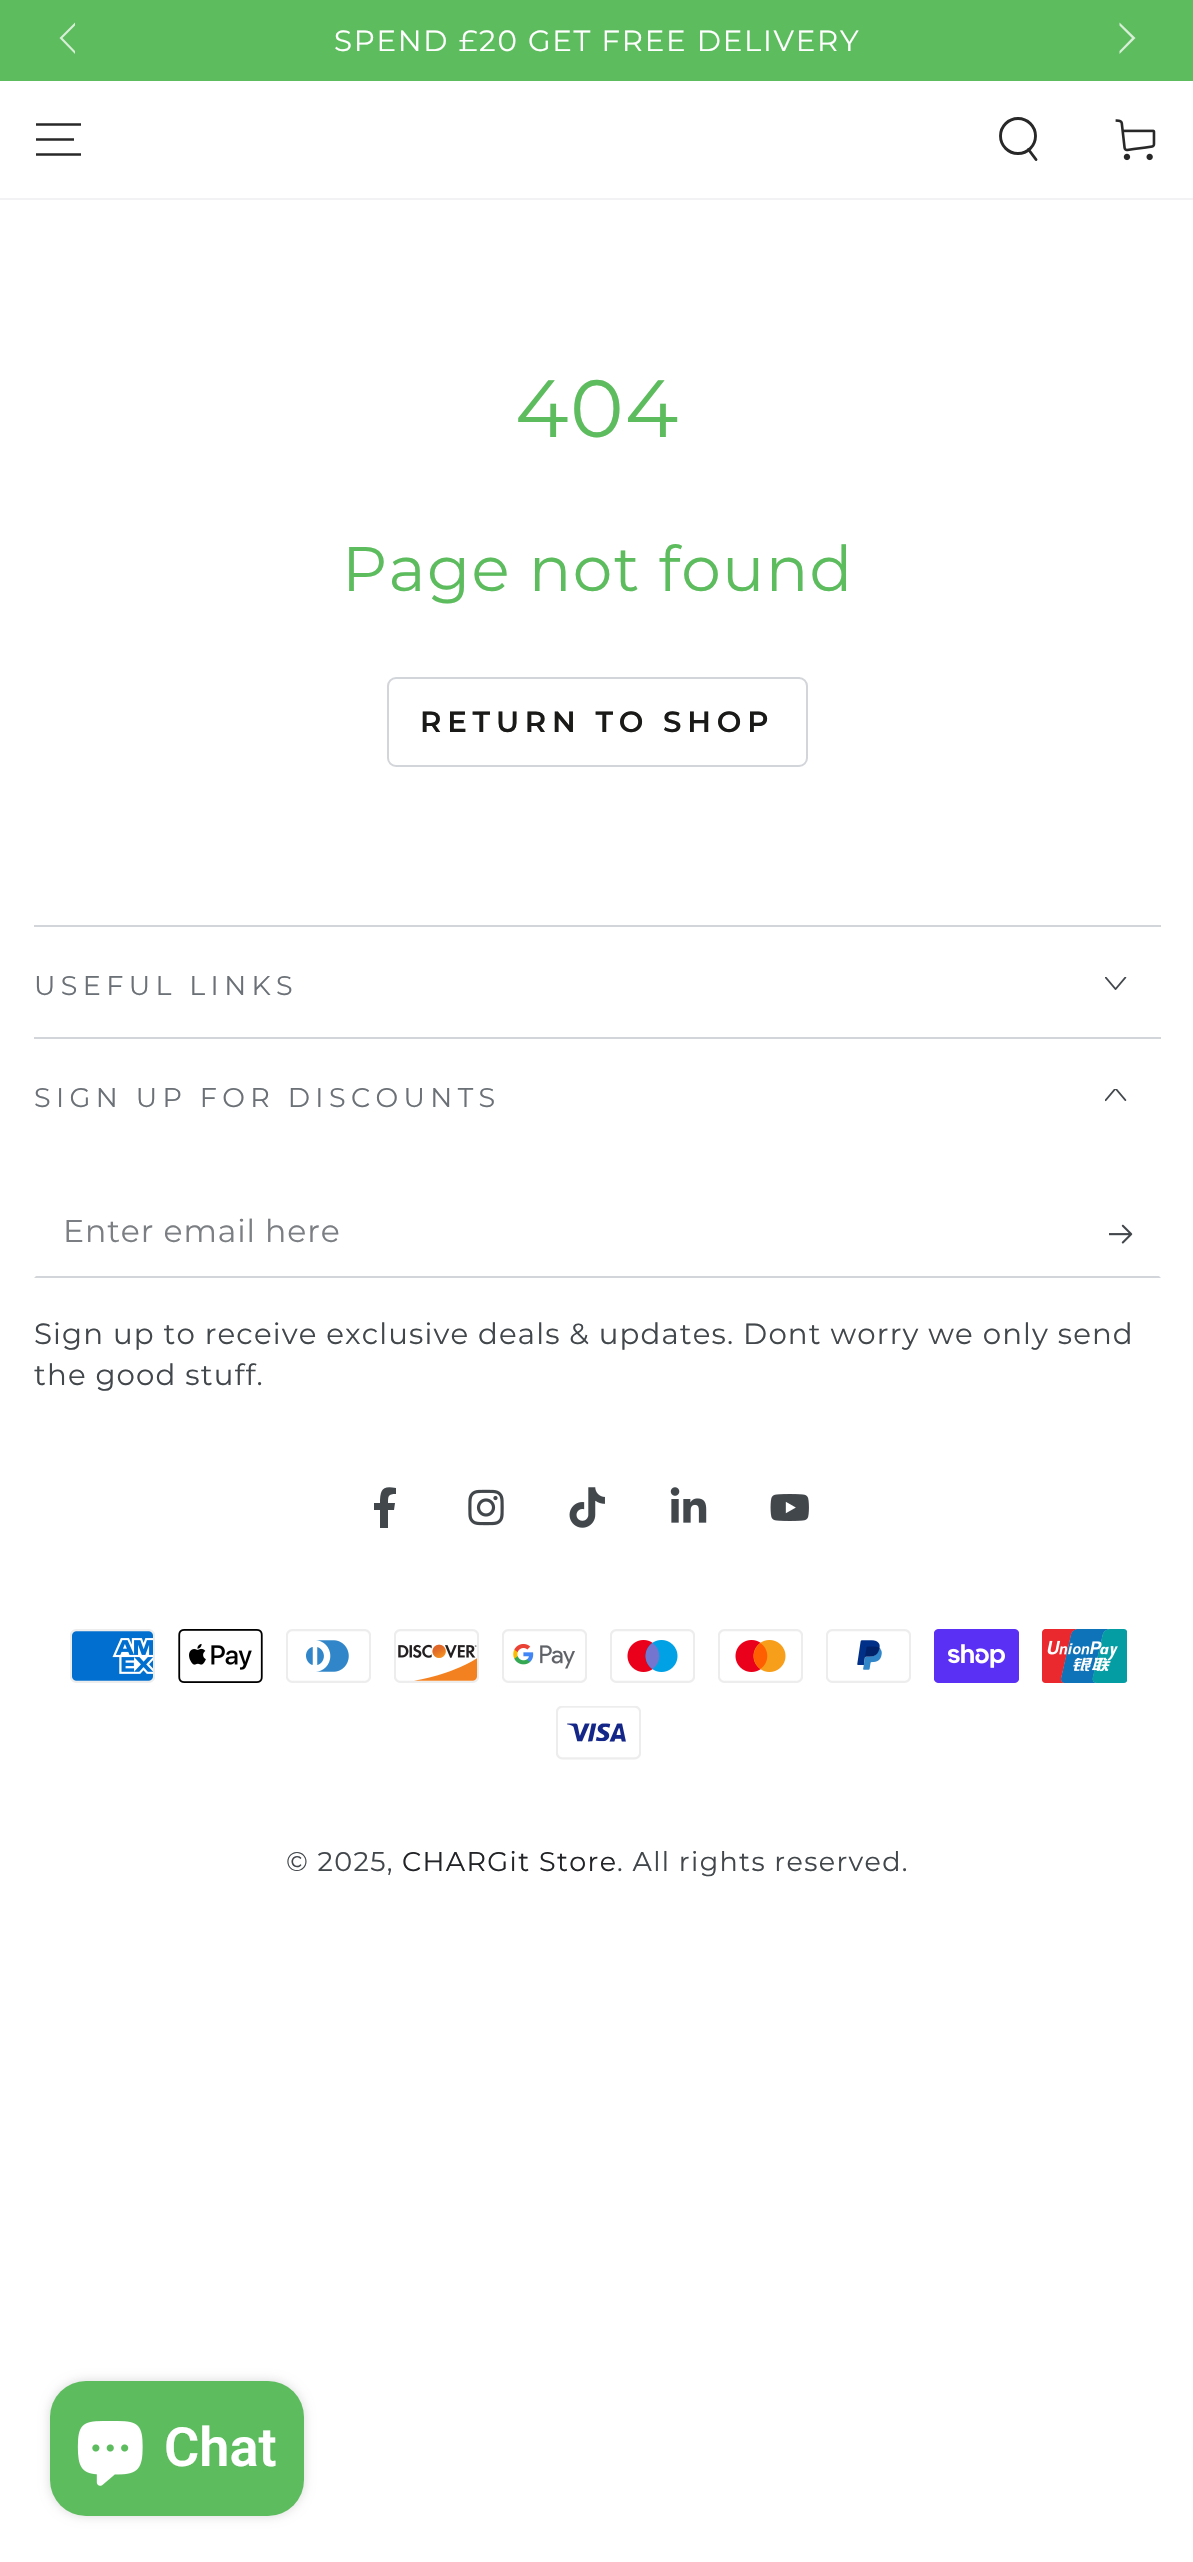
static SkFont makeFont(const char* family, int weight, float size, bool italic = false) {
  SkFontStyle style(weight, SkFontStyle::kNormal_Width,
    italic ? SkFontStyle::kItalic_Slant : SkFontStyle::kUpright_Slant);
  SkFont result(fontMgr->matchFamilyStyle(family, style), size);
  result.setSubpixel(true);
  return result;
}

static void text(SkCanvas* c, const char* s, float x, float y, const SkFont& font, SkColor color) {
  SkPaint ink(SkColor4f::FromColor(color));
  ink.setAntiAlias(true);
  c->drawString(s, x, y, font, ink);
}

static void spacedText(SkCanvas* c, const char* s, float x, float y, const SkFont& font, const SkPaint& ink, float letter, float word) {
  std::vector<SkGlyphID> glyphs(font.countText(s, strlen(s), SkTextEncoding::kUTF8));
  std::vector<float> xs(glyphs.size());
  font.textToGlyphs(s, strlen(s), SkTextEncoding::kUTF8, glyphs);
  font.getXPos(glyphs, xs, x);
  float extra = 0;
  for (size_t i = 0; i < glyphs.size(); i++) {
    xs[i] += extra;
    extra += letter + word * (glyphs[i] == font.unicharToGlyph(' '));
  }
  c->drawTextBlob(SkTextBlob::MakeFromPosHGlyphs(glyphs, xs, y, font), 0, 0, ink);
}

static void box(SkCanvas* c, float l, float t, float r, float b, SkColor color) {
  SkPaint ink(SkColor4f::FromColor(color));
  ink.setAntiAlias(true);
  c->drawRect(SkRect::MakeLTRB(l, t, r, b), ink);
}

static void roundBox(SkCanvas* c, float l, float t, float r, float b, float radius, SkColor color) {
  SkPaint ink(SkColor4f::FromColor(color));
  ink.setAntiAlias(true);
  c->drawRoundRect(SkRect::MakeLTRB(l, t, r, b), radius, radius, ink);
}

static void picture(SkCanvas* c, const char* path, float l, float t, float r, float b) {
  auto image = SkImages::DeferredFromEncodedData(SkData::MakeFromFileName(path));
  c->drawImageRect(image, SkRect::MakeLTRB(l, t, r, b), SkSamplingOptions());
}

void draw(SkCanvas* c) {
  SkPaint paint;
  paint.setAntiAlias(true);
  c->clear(0xffffffff);
  box(c, 0, 0, 1193, 81, 0xff5dbc5e);
  paint.setColor(0xffd7eed7);
  c->drawPath(SkPathBuilder(SkPathFillType::kEvenOdd).moveTo(59.5f, 38).lineTo(75, 54).lineTo(75, 51).lineTo(62.5f, 38).lineTo(75, 25.5f).lineTo(75, 22.5f).close().detach(), paint);
  c->drawPath(SkPathBuilder(SkPathFillType::kEvenOdd).moveTo(1135.5f, 38).lineTo(1119.5f, 54).lineTo(1119.5f, 51).lineTo(1132, 38).lineTo(1119.5f, 25.5f).lineTo(1119.5f, 22.5f).close().detach(), paint);
  SkFont face1 = makeFont("Montserrat", 400, 29.25f);
  paint.setColor(0xffffffff);
  spacedText(c, "SPEND £20 GET FREE DELIVERY", 334, 51, face1, paint, 1.75f, 0);
  paint.setColor(0xfff2f2f4);
  c->drawPath(SkPathBuilder().moveTo(0, 198).lineTo(0, 200).lineTo(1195, 200).lineTo(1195, 83).lineTo(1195, 198).close().detach(), paint);
  paint.setStyle(SkPaint::kStroke_Style);
  paint.setStrokeWidth(2.5f);
  paint.setColor(0xff282828);
  c->drawPath(SkPathBuilder().moveTo(36, 154.5f).lineTo(81, 154.5f).moveTo(36, 139.5f).lineTo(74, 139.5f).moveTo(36, 124.5f).lineTo(81, 124.5f).detach(), paint);
  paint.setStrokeWidth(2.9f);
  c->drawCircle(1018, 136, 17.5f, paint);
  paint.setStrokeCap(SkPaint::kRound_Cap);
  c->drawPath(SkPathBuilder().moveTo(1028.5f, 149.5f).lineTo(1036, 159.5f).detach(), paint);
  picture(c, "img_01.png", 1115, 119, 1156, 161);
  SkFont face2 = makeFont("Montserrat", 400, 81);
  paint.setStyle(SkPaint::kFill_Style);
  paint.setColor(0xff5dbc5e);
  spacedText(c, "404", 515, 437, face2, paint, 1.35f, 0);
  SkFont face3 = makeFont("Montserrat", 400, 63);
  spacedText(c, "Page not found", 342, 591, face3, paint, 1.35f, 0);
  paint.setStyle(SkPaint::kStroke_Style);
  paint.setStrokeWidth(2);
  paint.setStrokeCap(SkPaint::kButt_Cap);
  paint.setColor(0xffd2d5d9);
  c->drawRoundRect(SkRect::MakeLTRB(388, 678, 807, 766), 8, 8, paint);
  SkFont face4 = makeFont("Montserrat", 600, 29.25f);
  paint.setStyle(SkPaint::kFill_Style);
  paint.setColor(0xff1a1b18);
  spacedText(c, "RETURN TO SHOP", 420, 732, face4, paint, 5.8f, 0);
  box(c, 34, 925, 1161, 927, 0xffd2d5d9);
  box(c, 34, 1037, 1161, 1039, 0xffd2d5d9);
  SkFont face5 = makeFont("Montserrat", 400, 27);
  paint.setColor(0xff6b7177);
  spacedText(c, "USEFUL LINKS", 34, 995, face5, paint, 5.4f, 0);
  picture(c, "img_02.png", 1105, 977, 1127, 990);
  spacedText(c, "SIGN UP FOR DISCOUNTS", 34, 1107, face5, paint, 5.4f, 0);
  picture(c, "img_03.png", 1105, 1089, 1127, 1102);
  paint.setColor(0xffd2d5d9);
  c->drawPath(SkPathBuilder().moveTo(1161, 1278).lineTo(34, 1278).lineTo(36, 1276).lineTo(1159, 1276).close().detach(), paint);
  SkFont face6 = makeFont("Montserrat", 400, 31.5f);
  paint.setColor(0xff7b7e82);
  spacedText(c, "Enter email here", 63, 1242, face6, paint, 0.9f, 0);
  picture(c, "img_04.png", 1109, 1224, 1133, 1244);
  paint.setColor(0xff42474c);
  spacedText(c, "Sign up to receive exclusive deals & updates. Dont worry we only send", 34, 1344, face1, paint, 1.12f, 0);
  spacedText(c, "the good stuff.", 34, 1385, face1, paint, 1.12f, 0);
  c->drawPath(SkPathBuilder().moveTo(394, 1510).lineTo(395, 1503).lineTo(388, 1503).cubicTo(388, 1496, 388, 1494, 396, 1494).lineTo(396, 1488).cubicTo(382, 1485, 380, 1490, 380, 1503).lineTo(374, 1503).lineTo(374, 1510).lineTo(380, 1510).lineTo(380, 1528).lineTo(388, 1528).lineTo(388, 1510).close().detach(), paint);
  picture(c, "img_05.png", 468, 1489, 504, 1526);
  picture(c, "img_06.png", 569, 1487, 605, 1528);
  picture(c, "img_07.png", 670, 1487, 707, 1523);
  picture(c, "img_08.png", 770, 1494, 809, 1521);
  picture(c, "img_09.png", 70, 1629, 155, 1683);
  picture(c, "img_10.png", 178, 1629, 263, 1683);
  picture(c, "img_11.png", 286, 1629, 371, 1683);
  picture(c, "img_12.png", 394, 1629, 479, 1683);
  picture(c, "img_13.png", 502, 1629, 587, 1683);
  picture(c, "img_14.png", 610, 1629, 695, 1683);
  picture(c, "img_15.png", 718, 1629, 803, 1683);
  picture(c, "img_16.png", 826, 1629, 911, 1683);
  picture(c, "img_17.png", 934, 1629, 1019, 1683);
  picture(c, "img_18.png", 1042, 1629, 1127, 1683);
  picture(c, "img_19.png", 556, 1706, 641, 1760);
  spacedText(c, "© 2025,", 286, 1871, face5, paint, 1.35f, 0);
  paint.setColor(0xff212326);
  spacedText(c, "CHARGit Store", 402, 1871, face5, paint, 1.35f, 0);
  paint.setColor(0xff42474c);
  spacedText(c, ". All rights reserved.", 617, 1871, face5, paint, 1.35f, 0);
  paint.setColor(0x26000000);
  paint.setMaskFilter(SkMaskFilter::MakeBlur(kNormal_SkBlurStyle, 5.5f));
  c->drawRoundRect(SkRect::MakeLTRB(50, 2381, 304, 2516), 36, 36, paint);
  paint.setMaskFilter(nullptr);
  roundBox(c, 50, 2381, 304, 2516, 36, 0xff5dbc5e);
  picture(c, "img_20.png", 77, 2421, 143, 2486);
  SkFont face7 = makeFont("Roboto", 600, 54);
  text(c, "Chat", 164, 2466, face7, 0xffffffff);
}
